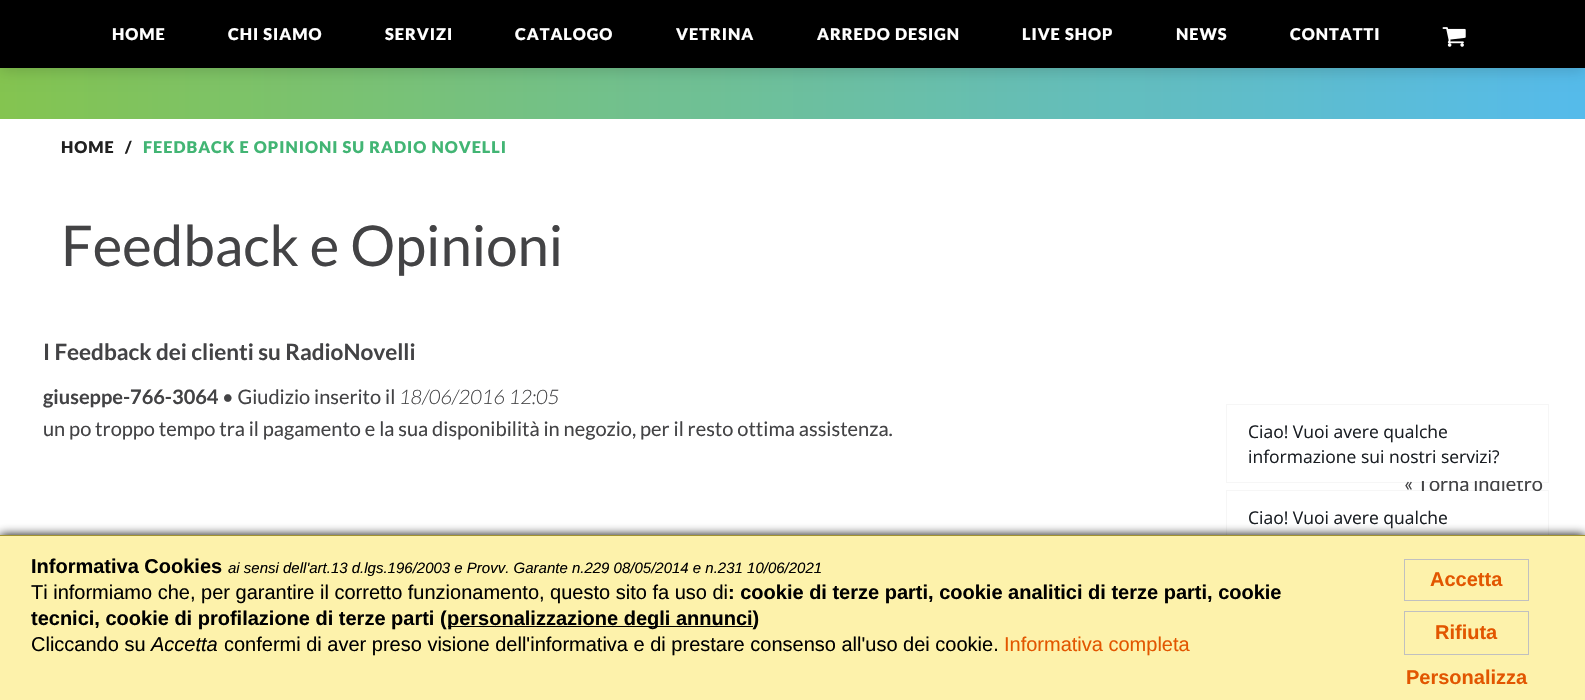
static SkFont makeFont(const char* family, int weight, float size, bool italic = false) {
  SkFontStyle style(weight, SkFontStyle::kNormal_Width,
    italic ? SkFontStyle::kItalic_Slant : SkFontStyle::kUpright_Slant);
  SkFont result(fontMgr->matchFamilyStyle(family, style), size);
  result.setSubpixel(true);
  return result;
}

static void text(SkCanvas* c, const char* s, float x, float y, const SkFont& font, SkColor color) {
  SkPaint ink(SkColor4f::FromColor(color));
  ink.setAntiAlias(true);
  c->drawString(s, x, y, font, ink);
}

static void spacedText(SkCanvas* c, const char* s, float x, float y, const SkFont& font, const SkPaint& ink, float letter, float word) {
  std::vector<SkGlyphID> glyphs(font.countText(s, strlen(s), SkTextEncoding::kUTF8));
  std::vector<float> xs(glyphs.size());
  font.textToGlyphs(s, strlen(s), SkTextEncoding::kUTF8, glyphs);
  font.getXPos(glyphs, xs, x);
  float extra = 0;
  for (size_t i = 0; i < glyphs.size(); i++) {
    xs[i] += extra;
    extra += letter + word * (glyphs[i] == font.unicharToGlyph(' '));
  }
  c->drawTextBlob(SkTextBlob::MakeFromPosHGlyphs(glyphs, xs, y, font), 0, 0, ink);
}

static void box(SkCanvas* c, float l, float t, float r, float b, SkColor color) {
  SkPaint ink(SkColor4f::FromColor(color));
  ink.setAntiAlias(true);
  c->drawRect(SkRect::MakeLTRB(l, t, r, b), ink);
}

static void roundBox(SkCanvas* c, float l, float t, float r, float b, float radius, SkColor color) {
  SkPaint ink(SkColor4f::FromColor(color));
  ink.setAntiAlias(true);
  c->drawRoundRect(SkRect::MakeLTRB(l, t, r, b), radius, radius, ink);
}

static void picture(SkCanvas* c, const char* path, float l, float t, float r, float b) {
  auto image = SkImages::DeferredFromEncodedData(SkData::MakeFromFileName(path));
  c->drawImageRect(image, SkRect::MakeLTRB(l, t, r, b), SkSamplingOptions());
}

void draw(SkCanvas* c) {
  SkPaint paint;
  paint.setAntiAlias(true);
  c->clear(0xffffffff);
  {
    const SkColor colors[] = {0xff55bbeb, 0xff84c450};
    const float stops[] = {0, 1};
    const SkPoint ends[] = {{1585, -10}, {0, -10}};
    paint.setShader(SkGradientShader::MakeLinear(ends, colors, stops, 2, SkTileMode::kClamp));
    paint.setAlpha(255);
  }
  c->drawRect(SkRect::MakeLTRB(0, 68, 1585, 119), paint);
  paint.setShader(nullptr);
  paint.setColor(0x26000000);
  paint.setMaskFilter(SkMaskFilter::MakeBlur(kNormal_SkBlurStyle, 7));
  c->drawRect(SkRect::MakeLTRB(0, 4, 1585, 71), paint);
  paint.setMaskFilter(nullptr);
  box(c, 0, 0, 1585, 68, 0xff000000);
  SkFont face1 = makeFont("Lato", 900, 16.25f);
  paint.setColor(0xffffffff);
  spacedText(c, "HOME", 112, 40, face1, paint, 1, 0);
  spacedText(c, "CHI SIAMO", 228, 40, face1, paint, 1, 0);
  spacedText(c, "SERVIZI", 385, 40, face1, paint, 1, 0);
  spacedText(c, "CATALOGO", 515, 40, face1, paint, 1, 0);
  spacedText(c, "VETRINA", 676, 40, face1, paint, 1, 0);
  spacedText(c, "ARREDO DESIGN", 817, 40, face1, paint, 1, 0);
  spacedText(c, "LIVE SHOP", 1022, 40, face1, paint, 1, 0);
  spacedText(c, "NEWS", 1176, 40, face1, paint, 1, 0);
  spacedText(c, "CONTATTI", 1290, 40, face1, paint, 1, 0);
  picture(c, "img_01.png", 1442, 27, 1466, 47);
  paint.setColor(0xff212121);
  spacedText(c, "HOME", 61, 153, face1, paint, 1, 0);
  spacedText(c, "/", 125, 153, face1, paint, 1, 0);
  paint.setColor(0xff42b574);
  spacedText(c, "FEEDBACK E OPINIONI SU RADIO NOVELLI", 143, 153, face1, paint, 1, 0);
  SkFont face2 = makeFont("Lato", 400, 56.25f);
  text(c, "Feedback e Opinioni", 61, 266, face2, 0xff434345);
  SkFont face3 = makeFont("Lato", 700, 22.5f);
  text(c, "I Feedback dei clienti su RadioNovelli", 43, 360, face3, 0xff434345);
  SkFont face4 = makeFont("Lato", 700, 20);
  text(c, "giuseppe-766-3064", 43, 404, face4, 0xff434345);
  SkFont face5 = makeFont("Lato", 400, 20);
  text(c, "• Giudizio inserito il", 222, 404, face5, 0xff434345);
  SkFont face6 = makeFont("Lato", 300, 20, true);
  text(c, "18/06/2016 12:05", 399, 404, face6, 0xff434345);
  text(c, "un po troppo tempo tra il pagamento e la sua disponibilità in negozio, per il resto ottima assistenza.", 43, 436, face5, 0xff434345);
  text(c, "« Torna indietro", 1404, 491, face5, 0xff434345);
  paint.setStyle(SkPaint::kStroke_Style);
  paint.setStrokeWidth(1);
  paint.setColor(0x0a161a1e);
  c->drawRect(SkRect::MakeLTRB(1226.5f, 404.5f, 1548.5f, 482.5f), paint);
  roundBox(c, 1228, 405, 1548, 481, 13, 0xffffffff);
  SkFont face7 = makeFont("Open Sans", 400, 17.5f);
  text(c, "Ciao! Vuoi avere qualche", 1248, 438, face7, 0xff1a1e23);
  text(c, "informazione sui nostri servizi?", 1248, 463, face7, 0xff1a1e23);
  c->drawRect(SkRect::MakeLTRB(1226.5f, 490.5f, 1548.5f, 568.5f), paint);
  roundBox(c, 1228, 491, 1548, 568, 13, 0xffffffff);
  text(c, "Ciao! Vuoi avere qualche", 1248, 524, face7, 0xff1a1e23);
  paint.setStyle(SkPaint::kFill_Style);
  paint.setColor(0xff000000);
  paint.setMaskFilter(SkMaskFilter::MakeBlur(kNormal_SkBlurStyle, 5));
  c->drawRect(SkRect::MakeLTRB(0, 535, 1585, 700), paint);
  paint.setMaskFilter(nullptr);
  box(c, 0, 536, 1585, 700, 0xfffdf2ab);
  box(c, 0, 535, 1585, 536, 0xffa29330);
  SkFont face8 = makeFont("Liberation Sans", 700, 20);
  text(c, "Informativa Cookies", 31, 573, face8, 0xff000000);
  SkFont face9 = makeFont("Liberation Sans", 400, 15, true);
  text(c, "ai sensi dell'art.13 d.lgs.196/2003 e Provv. Garante n.229 08/05/2014 e n.231 10/06/2021", 228, 573, face9, 0xff000000);
  SkFont face10 = makeFont("Liberation Sans", 400, 20);
  text(c, "Ti informiamo che, per garantire il corretto funzionamento, questo sito fa uso di", 31, 599, face10, 0xff000000);
  text(c, ": cookie di terze parti, cookie analitici di terze parti, cookie", 728, 599, face8, 0xff000000);
  text(c, "tecnici, cookie di profilazione di terze parti (", 31, 625, face8, 0xff000000);
  box(c, 448, 626, 753, 627, 0xff000000);
  text(c, "personalizzazione degli annunci)", 447, 625, face8, 0xff000000);
  text(c, "Cliccando su", 31, 651, face10, 0xff000000);
  SkFont face11 = makeFont("Liberation Sans", 400, 20, true);
  text(c, "Accetta", 151, 651, face11, 0xff000000);
  text(c, "confermi di aver preso visione dell'informativa e di prestare consenso all'uso dei cookie.", 224, 651, face10, 0xff000000);
  text(c, "Informativa completa", 1004, 651, face10, 0xffe25600);
  paint.setStyle(SkPaint::kStroke_Style);
  paint.setColor(0xffc0c0c0);
  c->drawRect(SkRect::MakeLTRB(1404.5f, 559.5f, 1528.5f, 600.5f), paint);
  text(c, "Accetta", 1430, 586, face8, 0xffe25600);
  c->drawRect(SkRect::MakeLTRB(1404.5f, 611.5f, 1528.5f, 654.5f), paint);
  text(c, "Rifiuta", 1435, 639, face8, 0xffe25600);
  text(c, "Personalizza", 1406, 684, face8, 0xffe25600);
}
